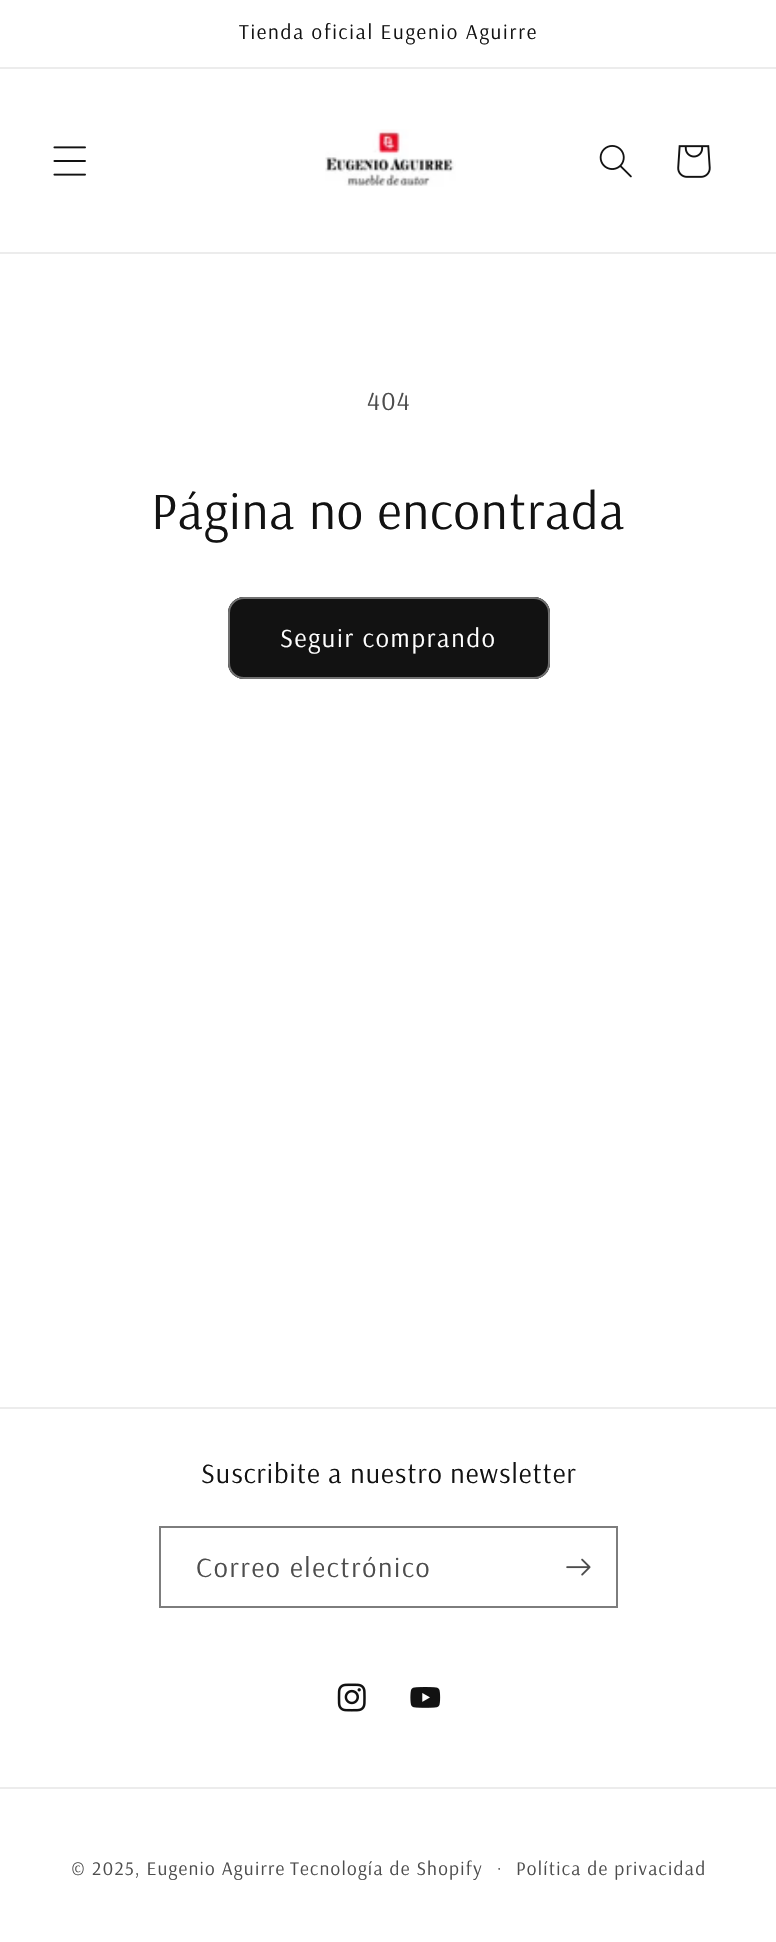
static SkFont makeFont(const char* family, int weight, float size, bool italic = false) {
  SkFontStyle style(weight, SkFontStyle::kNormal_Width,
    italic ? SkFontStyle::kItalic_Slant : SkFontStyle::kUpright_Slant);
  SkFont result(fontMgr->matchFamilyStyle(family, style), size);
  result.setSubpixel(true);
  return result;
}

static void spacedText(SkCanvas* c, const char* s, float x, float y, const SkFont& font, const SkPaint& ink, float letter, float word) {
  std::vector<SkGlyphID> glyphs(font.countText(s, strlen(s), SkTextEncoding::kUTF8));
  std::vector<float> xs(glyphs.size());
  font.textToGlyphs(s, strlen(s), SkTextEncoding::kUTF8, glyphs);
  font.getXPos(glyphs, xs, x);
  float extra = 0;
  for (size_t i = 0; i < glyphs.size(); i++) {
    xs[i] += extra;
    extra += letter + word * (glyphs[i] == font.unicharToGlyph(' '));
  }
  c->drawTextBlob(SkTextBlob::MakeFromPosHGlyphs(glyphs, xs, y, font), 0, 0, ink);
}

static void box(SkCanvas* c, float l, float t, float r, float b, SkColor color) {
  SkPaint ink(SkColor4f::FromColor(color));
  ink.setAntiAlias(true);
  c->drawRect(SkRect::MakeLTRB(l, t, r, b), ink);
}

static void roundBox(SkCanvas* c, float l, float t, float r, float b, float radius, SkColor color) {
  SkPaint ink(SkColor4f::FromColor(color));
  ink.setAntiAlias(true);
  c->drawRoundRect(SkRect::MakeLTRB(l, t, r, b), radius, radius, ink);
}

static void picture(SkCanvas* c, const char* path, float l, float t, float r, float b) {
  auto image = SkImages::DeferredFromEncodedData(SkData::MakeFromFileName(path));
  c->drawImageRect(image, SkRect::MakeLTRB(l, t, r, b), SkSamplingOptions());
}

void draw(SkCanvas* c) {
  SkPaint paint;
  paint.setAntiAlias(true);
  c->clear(0xffffffff);
  box(c, 0, 67, 776, 69, 0xffececec);
  SkFont face1 = makeFont("Arsenal", 400, 21);
  paint.setColor(0xff121212);
  spacedText(c, "Tienda oficial Eugenio Aguirre", 239, 39, face1, paint, 1.75f, 0);
  box(c, 0, 252, 776, 254, 0xffececec);
  picture(c, "img_01.png", 53, 146, 86, 176);
  picture(c, "img_02.png", 325, 129, 456, 187);
  picture(c, "img_03.png", 599, 145, 632, 178);
  picture(c, "img_04.png", 677, 145, 711, 178);
  SkFont face2 = makeFont("Arsenal", 400, 26.25f);
  paint.setColor(0xff4d4d4d);
  spacedText(c, "404", 367, 410, face2, paint, 1.05f, 0);
  SkFont face3 = makeFont("Arsenal", 400, 52.5f);
  paint.setColor(0xff121212);
  spacedText(c, "Página no encontrada", 151, 529, face3, paint, 1.05f, 0);
  roundBox(c, 228, 597, 550, 679, 16, 0xff121212);
  paint.setStyle(SkPaint::kStroke_Style);
  paint.setStrokeWidth(2);
  c->drawRoundRect(SkRect::MakeLTRB(229, 598, 549, 678), 15, 15, paint);
  paint.setColor(0x66ffffff);
  c->drawRoundRect(SkRect::MakeLTRB(229, 598, 549, 678), 15, 15, paint);
  paint.setStyle(SkPaint::kFill_Style);
  paint.setColor(0xffffffff);
  spacedText(c, "Seguir comprando", 280, 647, face2, paint, 1.75f, 0);
  box(c, 0, 1407, 776, 1409, 0xffececec);
  SkFont face4 = makeFont("Arsenal", 400, 28);
  paint.setColor(0xff121212);
  spacedText(c, "Suscribite a nuestro newsletter", 201, 1483, face4, paint, 1.05f, 0);
  paint.setStyle(SkPaint::kStroke_Style);
  paint.setColor(0xff7d7d7d);
  c->drawRect(SkRect::MakeLTRB(160, 1527, 617, 1607), paint);
  paint.setStyle(SkPaint::kFill_Style);
  paint.setColor(0xff4d4d4d);
  spacedText(c, "Correo electrónico", 196, 1577, face4, paint, 1.75f, 0);
  picture(c, "img_05.png", 566, 1558, 591, 1576);
  picture(c, "img_06.png", 337, 1683, 366, 1712);
  picture(c, "img_07.png", 410, 1687, 441, 1708);
  box(c, 0, 1787, 776, 1789, 0xffececec);
  SkFont face5 = makeFont("Arsenal", 400, 19.25f);
  spacedText(c, "© 2025, Eugenio Aguirre", 71, 1875, face5, paint, 1.25f, 0);
  spacedText(c, "Tecnología de Shopify", 290, 1875, face5, paint, 1.25f, 0);
  SkFont face6 = makeFont("Arsenal", 400, 18);
  spacedText(c, "·", 497, 1875, face6, paint, 1.25f, 0);
  spacedText(c, "Política de privacidad", 516, 1875, face5, paint, 1.25f, 0);
}
